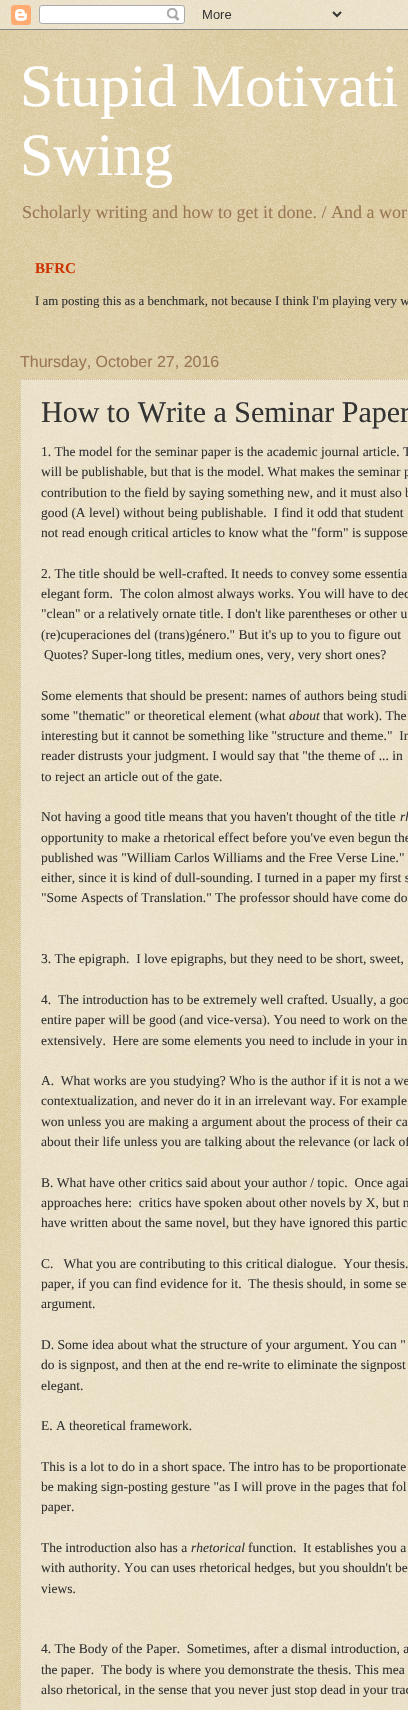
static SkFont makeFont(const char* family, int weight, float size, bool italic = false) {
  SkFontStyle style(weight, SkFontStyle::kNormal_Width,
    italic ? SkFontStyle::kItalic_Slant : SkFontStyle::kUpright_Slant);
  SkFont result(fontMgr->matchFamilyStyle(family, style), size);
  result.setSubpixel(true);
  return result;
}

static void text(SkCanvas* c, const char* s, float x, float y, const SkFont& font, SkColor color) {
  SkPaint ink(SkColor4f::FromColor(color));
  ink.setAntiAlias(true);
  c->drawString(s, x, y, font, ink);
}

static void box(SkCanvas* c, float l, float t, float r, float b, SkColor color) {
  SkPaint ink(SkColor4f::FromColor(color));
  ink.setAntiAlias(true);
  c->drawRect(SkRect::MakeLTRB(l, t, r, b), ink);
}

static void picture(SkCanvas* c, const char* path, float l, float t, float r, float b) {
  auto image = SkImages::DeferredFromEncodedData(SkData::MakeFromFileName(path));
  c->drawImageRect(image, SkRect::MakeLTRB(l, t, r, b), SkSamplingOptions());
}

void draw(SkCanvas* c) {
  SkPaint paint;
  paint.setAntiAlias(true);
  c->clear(0xffc0a154);
  picture(c, "img_01.png", 0, 0, 408, 1710);
  picture(c, "img_02.png", 0, 0, 408, 30);
  SkFont face1 = makeFont("Liberation Serif", 400, 60);
  text(c, "Stupid Motivati", 20, 106, face1, 0xffffffff);
  text(c, "Swing", 20, 175, face1, 0xffffffff);
  SkFont face2 = makeFont("Liberation Serif", 400, 18);
  text(c, "Scholarly writing and how to get it done. / And a wor", 22, 218, face2, 0xff997755);
  SkFont face3 = makeFont("Liberation Serif", 700, 15);
  text(c, "BFRC", 35, 273, face3, 0xffcc3300);
  SkFont face4 = makeFont("Liberation Serif", 400, 12.9f);
  text(c, "I am posting this as a benchmark, not because I think I'm playing very w", 35, 305, face4, 0xff333333);
  SkFont face5 = makeFont("Liberation Sans", 400, 16);
  text(c, "Thursday, October 27, 2016", 20, 367, face5, 0xff997755);
  box(c, 20, 379, 408, 1710, 0x66ffffff);
  paint.setStyle(SkPaint::kStroke_Style);
  paint.setStrokeWidth(1);
  paint.setColor(0xffccbb99);
  paint.setPathEffect(SkDashPathEffect::Make({{1, 1}}, 0));
  c->drawPath(SkPathBuilder().moveTo(20, 379.5f).lineTo(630, 379.5f).detach(), paint);
  paint.setPathEffect(nullptr);
  paint.setPathEffect(SkDashPathEffect::Make({{1, 1}}, 0));
  c->drawPath(SkPathBuilder().moveTo(20.5f, 379).lineTo(20.5f, 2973).detach(), paint);
  paint.setPathEffect(nullptr);
  SkFont face6 = makeFont("Liberation Serif", 400, 30);
  text(c, "How to Write a Seminar Paper", 41, 422, face6, 0xff333333);
  SkFont face7 = makeFont("Liberation Serif", 400, 13.5f);
  text(c, "1. The model for the seminar paper is the academic journal article. T", 41, 456, face7, 0xff333333);
  text(c, "will be publishable, but that is the model. What makes the seminar p", 41, 476, face7, 0xff333333);
  text(c, "contribution to the field by saying something new, and it must also b", 41, 497, face7, 0xff333333);
  text(c, "good (A level) without being publishable.  I find it odd that student", 41, 517, face7, 0xff333333);
  text(c, "not read enough critical articles to know what the \"form\" is suppose", 41, 537, face7, 0xff333333);
  text(c, "2. The title should be well-crafted. It needs to convey some essentia", 41, 578, face7, 0xff333333);
  text(c, "elegant form.  The colon almost always works. You will have to dec", 41, 598, face7, 0xff333333);
  text(c, "\"clean\" or a relatively ornate title. I don't like parentheses or other u", 41, 618, face7, 0xff333333);
  text(c, "(re)cuperaciones del (trans)género.\" But it's up to you to figure out", 41, 639, face7, 0xff333333);
  text(c, "Quotes? Super-long titles, medium ones, very, very short ones?", 44, 659, face7, 0xff333333);
  text(c, "Some elements that should be present: names of authors being studi", 41, 700, face7, 0xff333333);
  text(c, "some \"thematic\" or theoretical element (what", 41, 720, face7, 0xff333333);
  SkFont face8 = makeFont("Liberation Serif", 400, 13.5f, true);
  text(c, "about", 289, 720, face8, 0xff333333);
  text(c, "that work). The", 323, 720, face7, 0xff333333);
  text(c, "interesting but it cannot be something like \"structure and theme.\"  In", 41, 740, face7, 0xff333333);
  text(c, "reader distrusts your judgment. I would say that \"the theme of ... in", 41, 760, face7, 0xff333333);
  text(c, "to reject an article out of the gate.", 41, 781, face7, 0xff333333);
  text(c, "Not having a good title means that you haven't thought of the title", 41, 821, face7, 0xff333333);
  text(c, "rh", 400, 821, face8, 0xff333333);
  text(c, "opportunity to make a rhetorical effect before you've even begun the", 41, 842, face7, 0xff333333);
  text(c, "published was \"William Carlos Williams and the Free Verse Line.\"", 41, 862, face7, 0xff333333);
  text(c, "either, since it is kind of dull-sounding. I turned in a paper my first s", 41, 882, face7, 0xff333333);
  text(c, "\"Some Aspects of Translation.\" The professor should have come do", 41, 902, face7, 0xff333333);
  text(c, "3. The epigraph.  I love epigraphs, but they need to be short, sweet,", 41, 963, face7, 0xff333333);
  text(c, "4.  The introduction has to be extremely well crafted. Usually, a goo", 41, 1004, face7, 0xff333333);
  text(c, "entire paper will be good (and vice-versa). You need to work on the", 41, 1024, face7, 0xff333333);
  text(c, "extensively.  Here are some elements you need to include in your in", 41, 1045, face7, 0xff333333);
  text(c, "A.  What works are you studying? Who is the author if it is not a we", 41, 1085, face7, 0xff333333);
  text(c, "contextualization, and never do it in an irrelevant way. For example", 41, 1105, face7, 0xff333333);
  text(c, "won unless you are making a argument about the process of their ca", 41, 1126, face7, 0xff333333);
  text(c, "about their life unless you are talking about the relevance (or lack of", 41, 1146, face7, 0xff333333);
  text(c, "B. What have other critics said about your author / topic.  Once agai", 41, 1187, face7, 0xff333333);
  text(c, "approaches here:  critics have spoken about other novels by X, but n", 41, 1207, face7, 0xff333333);
  text(c, "have written about the same novel, but they have ignored this partic", 41, 1227, face7, 0xff333333);
  text(c, "C.   What you are contributing to this critical dialogue.  Your thesis.", 41, 1268, face7, 0xff333333);
  text(c, "paper, if you can find evidence for it.  The thesis should, in some se", 41, 1288, face7, 0xff333333);
  text(c, "argument.", 41, 1308, face7, 0xff333333);
  text(c, "D. Some idea about what the structure of your argument. You can \"", 41, 1349, face7, 0xff333333);
  text(c, "do is signpost, and then at the end re-write to eliminate the signpost", 41, 1369, face7, 0xff333333);
  text(c, "elegant.", 41, 1390, face7, 0xff333333);
  text(c, "E. A theoretical framework.", 41, 1430, face7, 0xff333333);
  text(c, "This is a lot to do in a short space. The intro has to be proportionate", 41, 1471, face7, 0xff333333);
  text(c, "be making sign-posting gesture \"as I will prove in the pages that fol", 41, 1491, face7, 0xff333333);
  text(c, "paper.", 41, 1511, face7, 0xff333333);
  text(c, "The introduction also has a", 41, 1552, face7, 0xff333333);
  text(c, "rhetorical", 191, 1552, face8, 0xff333333);
  text(c, "function.  It establishes you a", 248, 1552, face7, 0xff333333);
  text(c, "with authority. You can uses rhetorical hedges, but you shouldn't be", 41, 1572, face7, 0xff333333);
  text(c, "views.", 41, 1593, face7, 0xff333333);
  text(c, "4. The Body of the Paper.  Sometimes, after a dismal introduction, a", 41, 1653, face7, 0xff333333);
  text(c, "the paper.  The body is where you demonstrate the thesis. This mea", 41, 1674, face7, 0xff333333);
  text(c, "also rhetorical, in the sense that you never just stop dead in your trac", 41, 1694, face7, 0xff333333);
}
